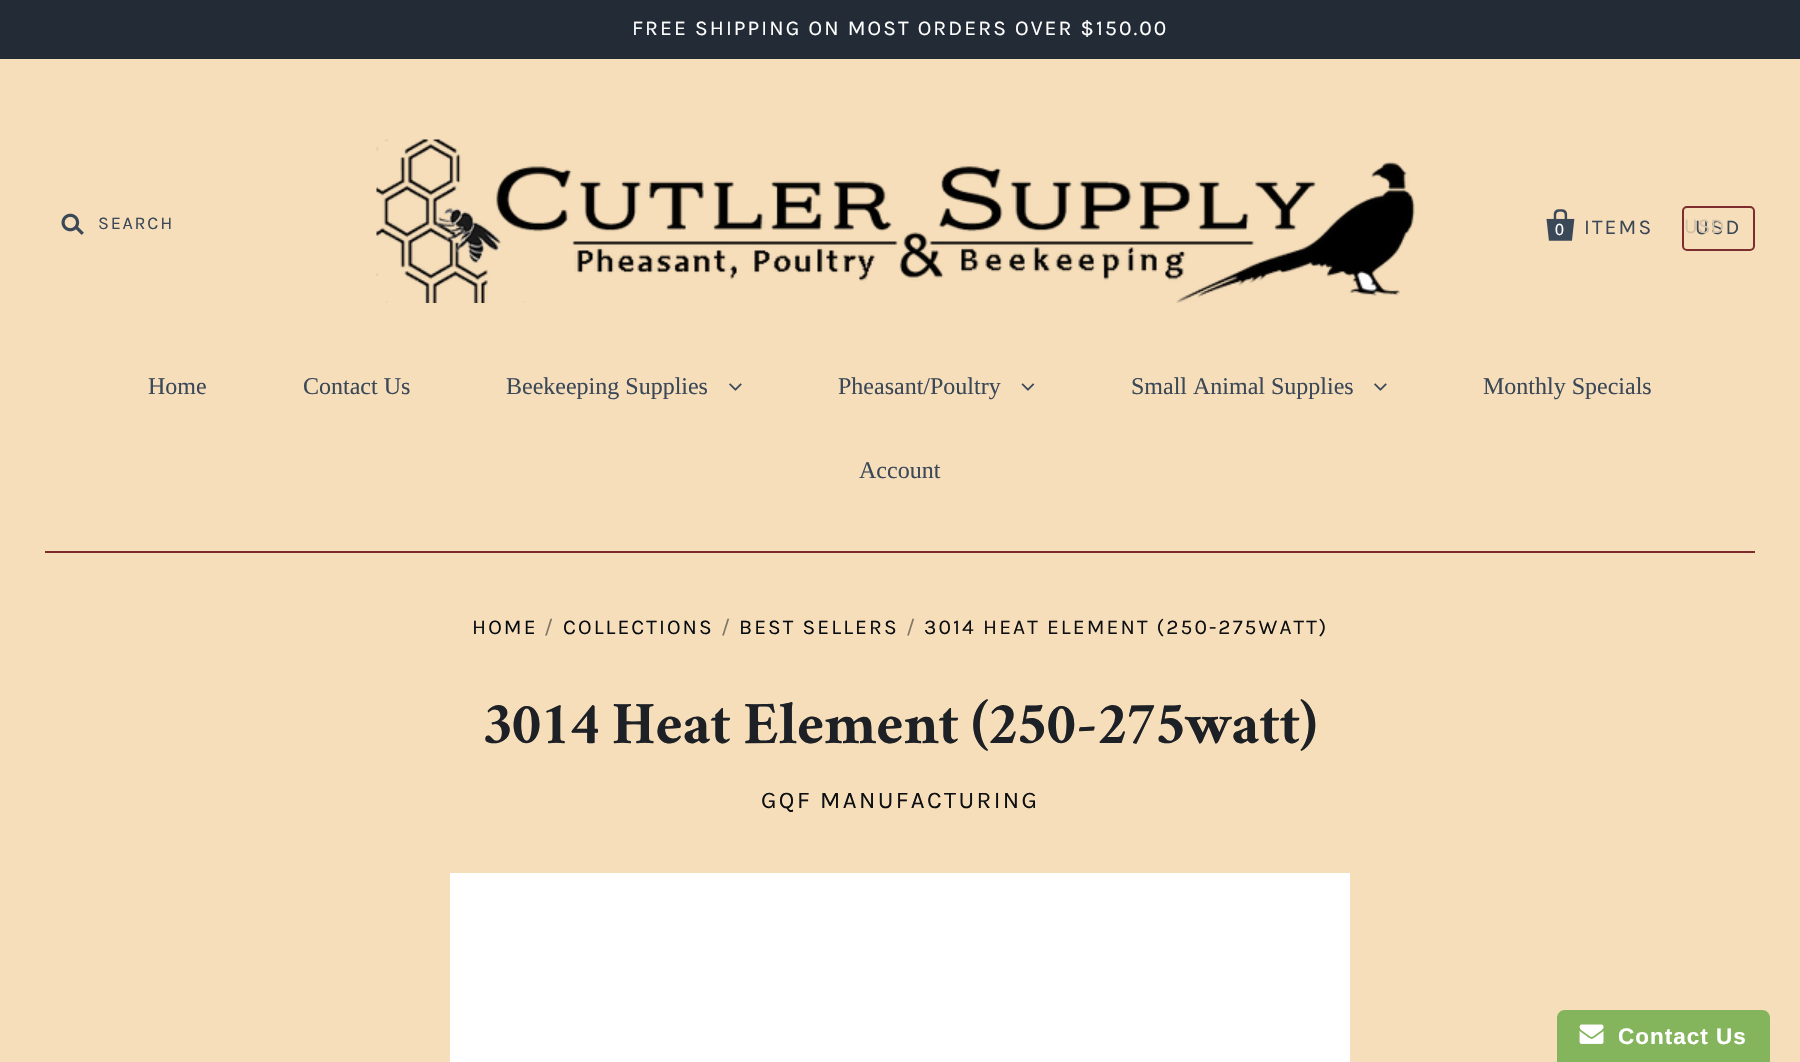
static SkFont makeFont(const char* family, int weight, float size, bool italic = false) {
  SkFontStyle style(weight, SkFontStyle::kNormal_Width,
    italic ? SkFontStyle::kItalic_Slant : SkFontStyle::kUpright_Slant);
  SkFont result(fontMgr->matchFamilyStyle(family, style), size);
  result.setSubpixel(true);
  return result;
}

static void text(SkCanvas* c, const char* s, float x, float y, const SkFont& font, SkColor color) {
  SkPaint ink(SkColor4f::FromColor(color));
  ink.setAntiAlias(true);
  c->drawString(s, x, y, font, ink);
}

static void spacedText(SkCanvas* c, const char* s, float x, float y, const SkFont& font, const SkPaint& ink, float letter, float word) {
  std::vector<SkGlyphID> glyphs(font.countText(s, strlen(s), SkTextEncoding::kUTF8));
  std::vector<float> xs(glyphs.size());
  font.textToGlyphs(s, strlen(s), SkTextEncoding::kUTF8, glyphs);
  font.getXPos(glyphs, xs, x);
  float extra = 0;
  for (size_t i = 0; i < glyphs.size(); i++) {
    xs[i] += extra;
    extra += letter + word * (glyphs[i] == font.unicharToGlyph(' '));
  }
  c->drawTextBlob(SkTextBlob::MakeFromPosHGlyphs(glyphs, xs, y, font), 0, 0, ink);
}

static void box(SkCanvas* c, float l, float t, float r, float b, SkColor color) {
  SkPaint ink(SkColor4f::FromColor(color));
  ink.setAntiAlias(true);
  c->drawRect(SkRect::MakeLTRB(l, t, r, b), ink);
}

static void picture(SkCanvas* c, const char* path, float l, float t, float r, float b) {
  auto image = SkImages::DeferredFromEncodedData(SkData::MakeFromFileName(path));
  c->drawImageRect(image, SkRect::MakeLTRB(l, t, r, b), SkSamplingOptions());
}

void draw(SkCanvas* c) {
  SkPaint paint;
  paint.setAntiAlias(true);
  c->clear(0xfff6deba);
  box(c, 0, 0, 1800, 59, 0xff232b36);
  SkFont face1 = makeFont("Karla", 400, 21);
  paint.setColor(0xffffffff);
  spacedText(c, "FREE SHIPPING ON MOST ORDERS OVER $150.00", 632, 35, face1, paint, 2.1f, 0);
  box(c, 45, 551, 1755, 553, 0xff7d2d2d);
  picture(c, "img_01.png", 61, 213, 84, 235);
  SkFont face2 = makeFont("Karla", 400, 18);
  paint.setColor(0xff3b4858);
  spacedText(c, "SEARCH", 98, 229, face2, paint, 1.75f, 0);
  picture(c, "img_02.png", 376, 139, 1415, 303);
  picture(c, "img_03.png", 1546, 209, 1575, 241);
  spacedText(c, "ITEMS", 1584, 234, face1, paint, 2.1f, 0);
  SkFont face3 = makeFont("Liberation Sans", 400, 16);
  paint.setColor(0xffffffff);
  spacedText(c, "0", 1555, 235, face3, paint, 2.1f, 0);
  paint.setStyle(SkPaint::kStroke_Style);
  paint.setStrokeWidth(2);
  paint.setColor(0xff7d2d2d);
  c->drawRoundRect(SkRect::MakeLTRB(1683, 207, 1754, 250), 4, 4, paint);
  paint.setStyle(SkPaint::kFill_Style);
  paint.setColor(0xff3b4858);
  spacedText(c, "USD", 1695, 234, face1, paint, 2.1f, 0);
  text(c, "USD", 1684, 233, face1, 0xffd3c2a8);
  SkFont face4 = makeFont("Liberation Serif", 400, 24);
  text(c, "Home", 148, 394, face4, 0xff3b4858);
  text(c, "Contact Us", 303, 394, face4, 0xff3b4858);
  text(c, "Beekeeping Supplies", 506, 394, face4, 0xff3b4858);
  picture(c, "img_04.png", 729, 383, 742, 391);
  text(c, "Pheasant/Poultry", 838, 394, face4, 0xff3b4858);
  picture(c, "img_05.png", 1021, 383, 1035, 391);
  text(c, "Small Animal Supplies", 1131, 394, face4, 0xff3b4858);
  picture(c, "img_04.png", 1374, 383, 1387, 391);
  text(c, "Monthly Specials", 1483, 394, face4, 0xff3b4858);
  text(c, "Account", 859, 478, face4, 0xff3b4858);
  paint.setColor(0xff060c12);
  spacedText(c, "HOME", 472, 634, face1, paint, 2.1f, 0);
  paint.setColor(0xff817665);
  spacedText(c, "/", 544, 634, face1, paint, 2.1f, 0);
  paint.setColor(0xff060c12);
  spacedText(c, "COLLECTIONS", 563, 634, face1, paint, 2.1f, 0);
  paint.setColor(0xff817665);
  spacedText(c, "/", 721, 634, face1, paint, 2.1f, 0);
  paint.setColor(0xff060c12);
  spacedText(c, "BEST SELLERS", 739, 634, face1, paint, 2.1f, 0);
  paint.setColor(0xff817665);
  spacedText(c, "/", 906, 634, face1, paint, 2.1f, 0);
  paint.setColor(0xff0d0f11);
  spacedText(c, "3014 HEAT ELEMENT (250-275WATT)", 924, 634, face1, paint, 2.1f, 0);
  SkFont face5 = makeFont("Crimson", 700, 54);
  text(c, "3014 Heat Element (250-275watt)", 483, 743, face5, 0xff1d2126);
  SkFont face6 = makeFont("Karla", 400, 24);
  spacedText(c, "GQF MANUFACTURING", 761, 808, face6, paint, 2.4f, 0);
  box(c, 450, 873, 1350, 1062, 0xffffffff);
  paint.setColor(0xff84b45b);
  c->drawPath(SkPathBuilder().moveTo(1565, 1010).lineTo(1762, 1010).cubicTo(1766.5f, 1010, 1770, 1013.5f, 1770, 1018).lineTo(1770, 1062).lineTo(1557, 1062).lineTo(1557, 1018).cubicTo(1557, 1013.5f, 1560.5f, 1010, 1565, 1010).close().detach(), paint);
  picture(c, "img_06.png", 1579, 1024, 1604, 1044);
  SkFont face7 = makeFont("Liberation Sans", 700, 22.5f);
  paint.setColor(0xffffffff);
  spacedText(c, "Contact Us", 1618, 1044, face7, paint, 1, 0);
}
